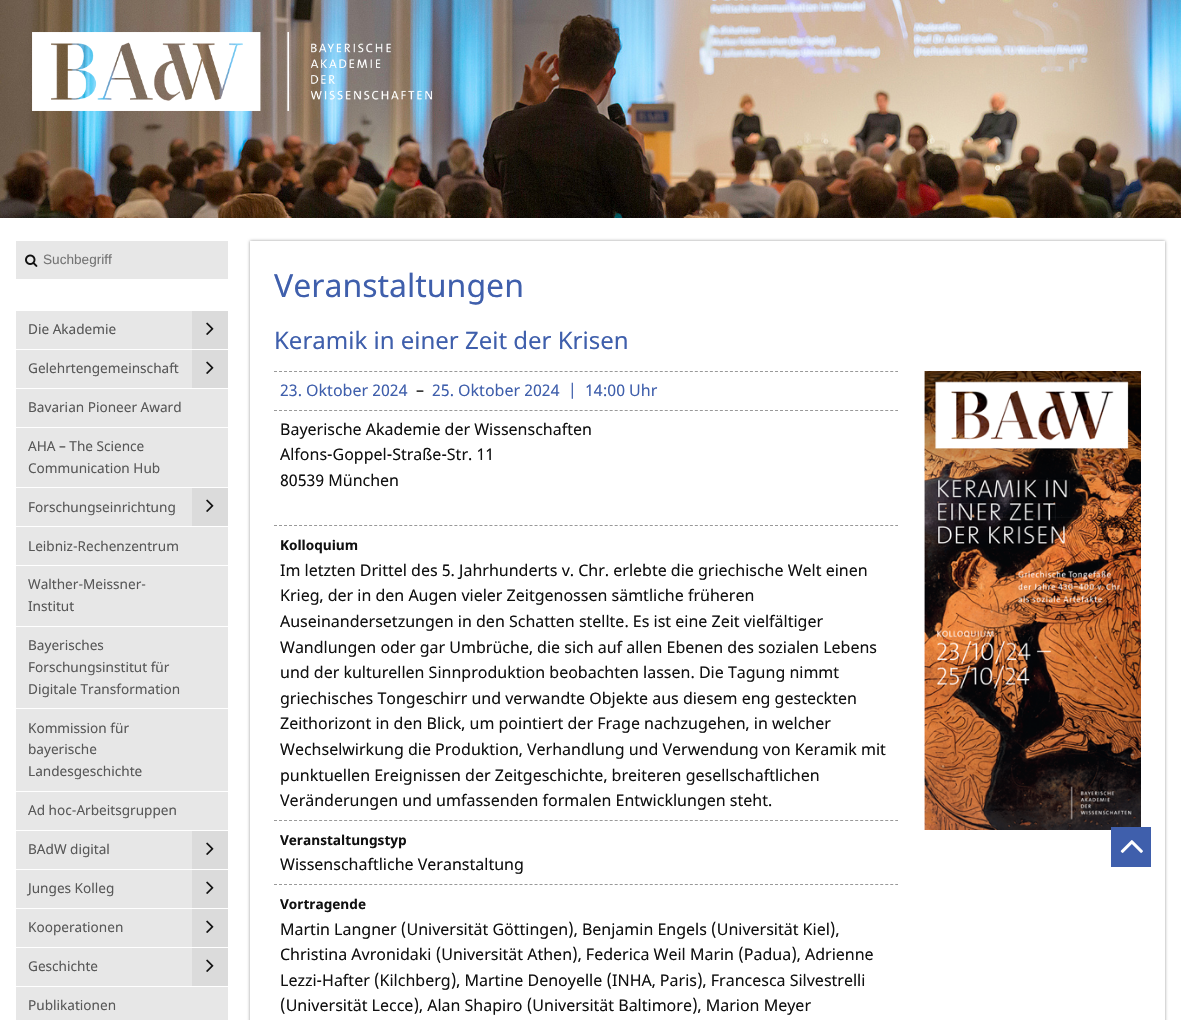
static SkFont makeFont(const char* family, int weight, float size, bool italic = false) {
  SkFontStyle style(weight, SkFontStyle::kNormal_Width,
    italic ? SkFontStyle::kItalic_Slant : SkFontStyle::kUpright_Slant);
  SkFont result(fontMgr->matchFamilyStyle(family, style), size);
  result.setSubpixel(true);
  return result;
}

static void text(SkCanvas* c, const char* s, float x, float y, const SkFont& font, SkColor color) {
  SkPaint ink(SkColor4f::FromColor(color));
  ink.setAntiAlias(true);
  c->drawString(s, x, y, font, ink);
}

static void box(SkCanvas* c, float l, float t, float r, float b, SkColor color) {
  SkPaint ink(SkColor4f::FromColor(color));
  ink.setAntiAlias(true);
  c->drawRect(SkRect::MakeLTRB(l, t, r, b), ink);
}

static void picture(SkCanvas* c, const char* path, float l, float t, float r, float b) {
  auto image = SkImages::DeferredFromEncodedData(SkData::MakeFromFileName(path));
  c->drawImageRect(image, SkRect::MakeLTRB(l, t, r, b), SkSamplingOptions());
}

void draw(SkCanvas* c) {
  SkPaint paint;
  paint.setAntiAlias(true);
  c->clear(0xffffffff);
  picture(c, "img_01.png", 0, 0, 1181, 218);
  picture(c, "img_02.png", 32, 32, 432, 111);
  box(c, 16, 241, 228, 279, 0xffe7e7e7);
  picture(c, "img_03.png", 25, 254, 38, 267);
  SkFont face1 = makeFont("Liberation Sans", 400, 13.6f);
  text(c, "Suchbegriff", 43, 264, face1, 0xff757575);
  box(c, 16, 311, 192, 349, 0xffe7e7e7);
  SkFont face2 = makeFont("Noto Sans", 400, 13.6f);
  text(c, "Die Akademie", 28, 334, face2, 0xff585858);
  box(c, 192, 311, 228, 349, 0xffdbdbdb);
  picture(c, "img_04.png", 206, 322, 214, 335);
  box(c, 16, 350, 192, 388, 0xffe7e7e7);
  text(c, "Gelehrtengemeinschaft", 28, 373, face2, 0xff585858);
  box(c, 192, 350, 228, 388, 0xffdbdbdb);
  picture(c, "img_04.png", 206, 361, 214, 374);
  box(c, 16, 389, 228, 427, 0xffe7e7e7);
  text(c, "Bavarian Pioneer Award", 28, 412, face2, 0xff585858);
  box(c, 16, 428, 228, 487, 0xffe7e7e7);
  text(c, "AHA – The Science", 28, 451, face2, 0xff585858);
  text(c, "Communication Hub", 28, 473, face2, 0xff585858);
  box(c, 16, 488, 192, 526, 0xffe7e7e7);
  text(c, "Forschungseinrichtung", 28, 512, face2, 0xff585858);
  box(c, 192, 488, 228, 526, 0xffdbdbdb);
  picture(c, "img_04.png", 206, 499, 214, 512);
  box(c, 16, 527, 228, 565, 0xffe7e7e7);
  text(c, "Leibniz-Rechenzentrum", 28, 551, face2, 0xff585858);
  box(c, 16, 566, 228, 626, 0xffe7e7e7);
  text(c, "Walther-Meissner-", 28, 589, face2, 0xff585858);
  text(c, "Institut", 28, 611, face2, 0xff585858);
  box(c, 16, 627, 228, 708, 0xffe7e7e7);
  text(c, "Bayerisches", 28, 650, face2, 0xff585858);
  text(c, "Forschungsinstitut für", 28, 672, face2, 0xff585858);
  text(c, "Digitale Transformation", 28, 694, face2, 0xff585858);
  box(c, 16, 709, 228, 791, 0xffe7e7e7);
  text(c, "Kommission für", 28, 733, face2, 0xff585858);
  text(c, "bayerische", 28, 754, face2, 0xff585858);
  text(c, "Landesgeschichte", 28, 776, face2, 0xff585858);
  box(c, 16, 792, 228, 830, 0xffe7e7e7);
  text(c, "Ad hoc-Arbeitsgruppen", 28, 815, face2, 0xff585858);
  box(c, 16, 831, 192, 869, 0xffe7e7e7);
  text(c, "BAdW digital", 28, 854, face2, 0xff585858);
  box(c, 192, 831, 228, 869, 0xffdbdbdb);
  picture(c, "img_04.png", 206, 842, 214, 855);
  box(c, 16, 870, 192, 908, 0xffe7e7e7);
  text(c, "Junges Kolleg", 28, 893, face2, 0xff585858);
  box(c, 192, 870, 228, 908, 0xffdbdbdb);
  picture(c, "img_04.png", 206, 881, 214, 894);
  box(c, 16, 909, 192, 947, 0xffe7e7e7);
  text(c, "Kooperationen", 28, 932, face2, 0xff585858);
  box(c, 192, 909, 228, 947, 0xffdbdbdb);
  picture(c, "img_04.png", 206, 920, 214, 933);
  box(c, 16, 948, 192, 986, 0xffe7e7e7);
  text(c, "Geschichte", 28, 971, face2, 0xff585858);
  box(c, 192, 948, 228, 986, 0xffdbdbdb);
  picture(c, "img_04.png", 206, 959, 214, 972);
  box(c, 16, 987, 228, 1020, 0xffe7e7e7);
  text(c, "Publikationen", 28, 1010, face2, 0xff585858);
  c->save();
  c->clipPath(SkPathBuilder(SkPathFillType::kEvenOdd).moveTo(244, 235).lineTo(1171, 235).lineTo(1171, 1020).lineTo(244, 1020).close().moveTo(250, 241).lineTo(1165, 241).lineTo(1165, 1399).lineTo(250, 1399).close().detach(), true);
  paint.setColor(0xff999999);
  paint.setMaskFilter(SkMaskFilter::MakeBlur(kNormal_SkBlurStyle, 1.5f));
  c->drawRect(SkRect::MakeLTRB(250, 241, 1165, 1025), paint);
  paint.setMaskFilter(nullptr);
  c->restore();
  SkFont face3 = makeFont("Noto Sans", 400, 32);
  text(c, "Veranstaltungen", 274, 297, face3, 0xff3f5fac);
  SkFont face4 = makeFont("Noto Sans", 400, 24);
  text(c, "Keramik in einer Zeit der Krisen", 274, 349, face4, 0xff3f5fac);
  paint.setStyle(SkPaint::kStroke_Style);
  paint.setStrokeWidth(1);
  paint.setPathEffect(SkDashPathEffect::Make({{3, 2.01f}}, 0));
  c->drawPath(SkPathBuilder().moveTo(274, 371.5f).lineTo(898, 371.5f).detach(), paint);
  paint.setPathEffect(nullptr);
  paint.setPathEffect(SkDashPathEffect::Make({{3, 2.01f}}, 0));
  c->drawPath(SkPathBuilder().moveTo(274, 410.5f).lineTo(898, 410.5f).detach(), paint);
  paint.setPathEffect(nullptr);
  SkFont face5 = makeFont("Noto Sans", 400, 16);
  text(c, "23. Oktober 2024", 280, 396, face5, 0xff3f5fac);
  text(c, "–", 416, 396, face5, 0xff111111);
  text(c, "25. Oktober 2024", 432, 396, face5, 0xff3f5fac);
  text(c, "|", 568, 396, face5, 0xff3f5fac);
  text(c, "14:00 Uhr", 585, 396, face5, 0xff3f5fac);
  paint.setPathEffect(SkDashPathEffect::Make({{3, 2.01f}}, 0));
  c->drawPath(SkPathBuilder().moveTo(274, 525.5f).lineTo(898, 525.5f).detach(), paint);
  paint.setPathEffect(nullptr);
  text(c, "Bayerische Akademie der Wissenschaften", 280, 435, face5, 0xff111111);
  text(c, "Alfons-Goppel-Straße-Str. 11", 280, 460, face5, 0xff111111);
  text(c, "80539 München", 280, 486, face5, 0xff111111);
  paint.setPathEffect(SkDashPathEffect::Make({{3, 2.01f}}, 0));
  c->drawPath(SkPathBuilder().moveTo(274, 820.5f).lineTo(898, 820.5f).detach(), paint);
  paint.setPathEffect(nullptr);
  SkFont face6 = makeFont("Noto Sans", 700, 13.6f);
  text(c, "Kolloquium", 280, 550, face6, 0xff111111);
  text(c, "Im letzten Drittel des 5. Jahrhunderts v. Chr. erlebte die griechische Welt einen", 280, 576, face5, 0xff111111);
  text(c, "Krieg, der in den Augen vieler Zeitgenossen sämtliche früheren", 280, 601, face5, 0xff111111);
  text(c, "Auseinandersetzungen in den Schatten stellte. Es ist eine Zeit vielfältiger", 280, 627, face5, 0xff111111);
  text(c, "Wandlungen oder gar Umbrüche, die sich auf allen Ebenen des sozialen Lebens", 280, 653, face5, 0xff111111);
  text(c, "und der kulturellen Sinnproduktion beobachten lassen. Die Tagung nimmt", 280, 678, face5, 0xff111111);
  text(c, "griechisches Tongeschirr und verwandte Objekte aus diesem eng gesteckten", 280, 704, face5, 0xff111111);
  text(c, "Zeithorizont in den Blick, um pointiert der Frage nachzugehen, in welcher", 280, 729, face5, 0xff111111);
  text(c, "Wechselwirkung die Produktion, Verhandlung und Verwendung von Keramik mit", 280, 755, face5, 0xff111111);
  text(c, "punktuellen Ereignissen der Zeitgeschichte, breiteren gesellschaftlichen", 280, 781, face5, 0xff111111);
  text(c, "Veränderungen und umfassenden formalen Entwicklungen steht.", 280, 806, face5, 0xff111111);
  paint.setPathEffect(SkDashPathEffect::Make({{3, 2.01f}}, 0));
  c->drawPath(SkPathBuilder().moveTo(274, 884.5f).lineTo(898, 884.5f).detach(), paint);
  paint.setPathEffect(nullptr);
  text(c, "Veranstaltungstyp", 280, 845, face6, 0xff111111);
  text(c, "Wissenschaftliche Veranstaltung", 280, 870, face5, 0xff111111);
  text(c, "Vortragende", 280, 909, face6, 0xff111111);
  text(c, "Martin Langner (Universität Göttingen), Benjamin Engels (Universität Kiel),", 280, 935, face5, 0xff111111);
  text(c, "Christina Avronidaki (Universität Athen), Federica Weil Marin (Padua), Adrienne", 280, 960, face5, 0xff111111);
  text(c, "Lezzi-Hafter (Kilchberg), Martine Denoyelle (INHA, Paris), Francesca Silvestrelli", 280, 986, face5, 0xff111111);
  text(c, "(Universität Lecce), Alan Shapiro (Universität Baltimore), Marion Meyer", 280, 1011, face5, 0xff111111);
  picture(c, "img_05.png", 924, 371, 1141, 830);
  box(c, 1111, 827, 1151, 867, 0xff3f5fac);
  picture(c, "img_06.png", 1120, 840, 1143, 853);
}
